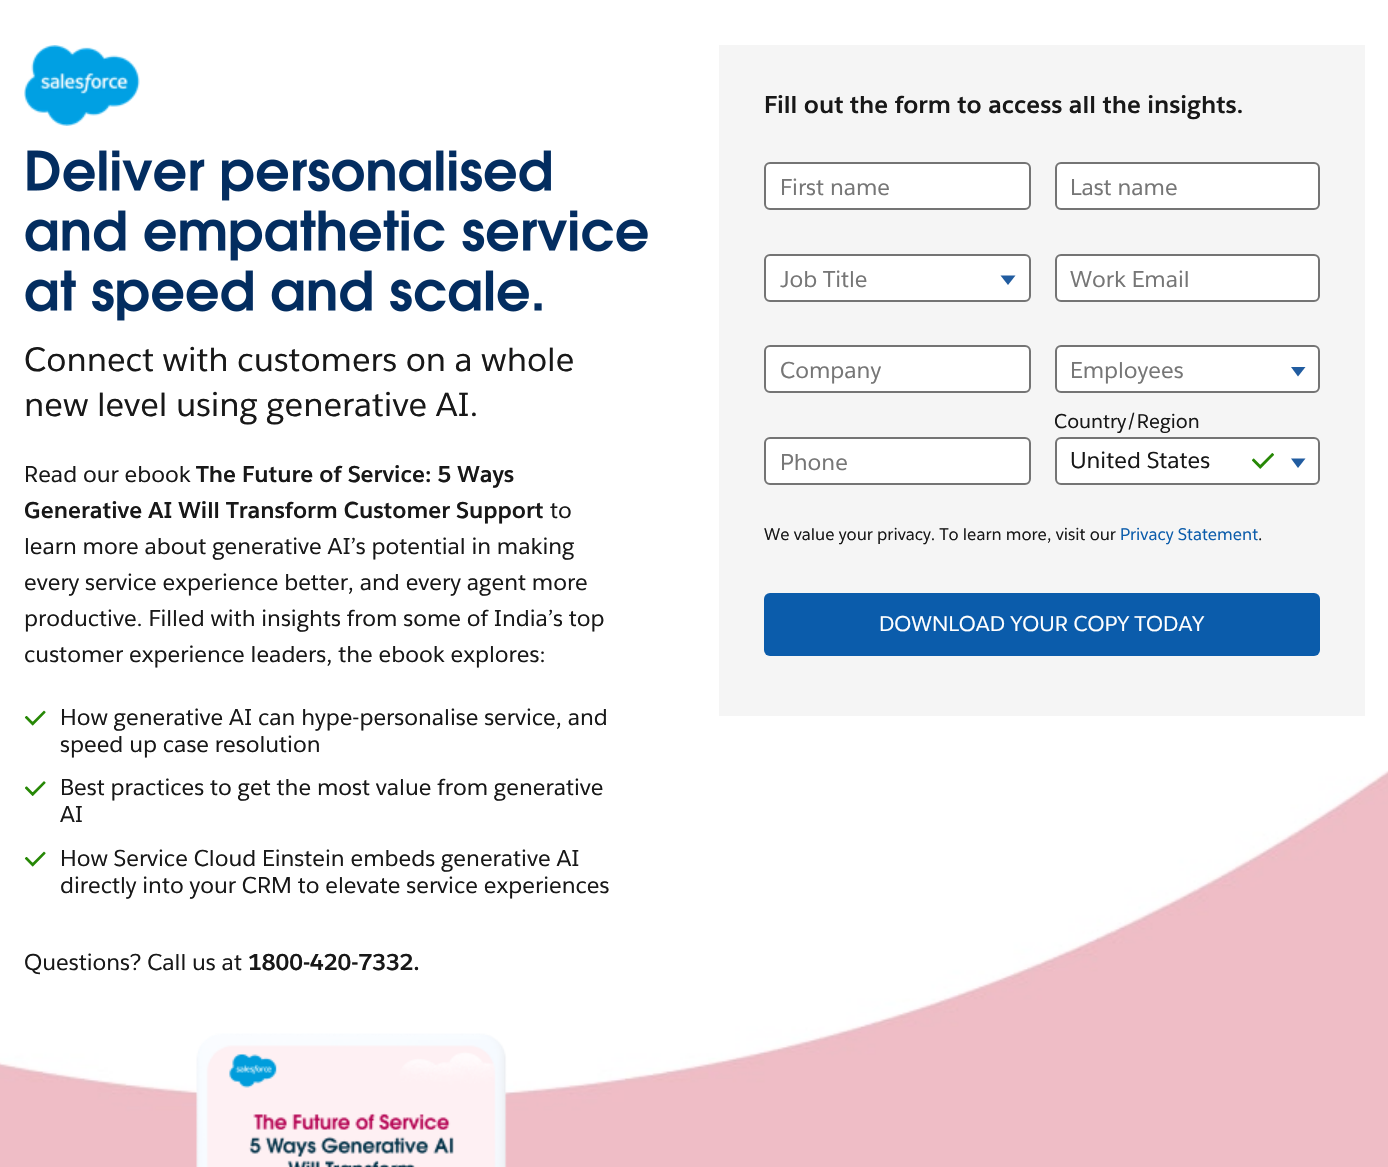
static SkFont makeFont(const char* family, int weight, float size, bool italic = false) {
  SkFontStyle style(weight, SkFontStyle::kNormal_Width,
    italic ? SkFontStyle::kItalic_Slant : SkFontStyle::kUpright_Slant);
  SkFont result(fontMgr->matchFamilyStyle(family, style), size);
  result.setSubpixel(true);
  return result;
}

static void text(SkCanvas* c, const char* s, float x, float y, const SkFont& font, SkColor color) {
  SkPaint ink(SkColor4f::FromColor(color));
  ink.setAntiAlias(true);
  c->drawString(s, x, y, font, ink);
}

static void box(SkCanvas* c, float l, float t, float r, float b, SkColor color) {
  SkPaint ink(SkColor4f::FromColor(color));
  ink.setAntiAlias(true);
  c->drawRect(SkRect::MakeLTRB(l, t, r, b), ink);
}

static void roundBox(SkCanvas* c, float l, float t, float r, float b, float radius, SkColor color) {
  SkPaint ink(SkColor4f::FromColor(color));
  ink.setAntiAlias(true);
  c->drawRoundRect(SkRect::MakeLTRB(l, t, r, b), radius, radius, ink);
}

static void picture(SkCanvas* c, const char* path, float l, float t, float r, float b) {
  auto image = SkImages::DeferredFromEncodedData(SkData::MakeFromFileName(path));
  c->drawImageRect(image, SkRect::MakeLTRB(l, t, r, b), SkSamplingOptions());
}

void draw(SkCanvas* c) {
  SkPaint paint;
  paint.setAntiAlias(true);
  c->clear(0xffffffff);
  picture(c, "img_01.png", 24, 45, 140, 126);
  picture(c, "img_02.png", 27, 150, 551, 201);
  picture(c, "img_03.png", 25, 210, 648, 261);
  picture(c, "img_04.png", 25, 270, 542, 321);
  SkFont face1 = makeFont("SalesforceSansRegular", 400, 33);
  text(c, "Connect with customers on a whole", 24, 371, face1, 0xff181818);
  text(c, "new level using generative AI.", 24, 416, face1, 0xff181818);
  SkFont face2 = makeFont("SalesforceSansRegular", 400, 22.5f);
  text(c, "Read our ebook", 24, 482, face2, 0xff181818);
  SkFont face3 = makeFont("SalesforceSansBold", 700, 22.5f);
  text(c, "The Future of Service: 5 Ways", 196, 482, face3, 0xff181818);
  text(c, "Generative AI Will Transform Customer Support", 24, 518, face3, 0xff181818);
  text(c, "to", 550, 518, face2, 0xff181818);
  text(c, "learn more about generative AI’s potential in making", 24, 554, face2, 0xff181818);
  text(c, "every service experience better, and every agent more", 24, 590, face2, 0xff181818);
  text(c, "productive. Filled with insights from some of India’s top", 24, 626, face2, 0xff181818);
  text(c, "customer experience leaders, the ebook explores:", 24, 662, face2, 0xff181818);
  picture(c, "img_05.png", 24, 710, 46, 726);
  text(c, "How generative AI can hype-personalise service, and", 60, 725, face2, 0xff181818);
  text(c, "speed up case resolution", 60, 752, face2, 0xff181818);
  picture(c, "img_09.png", 0, 770, 1388, 1167);
  picture(c, "img_06.png", 25, 781, 46, 796);
  text(c, "Best practices to get the most value from generative", 60, 795, face2, 0xff181818);
  text(c, "AI", 60, 822, face2, 0xff181818);
  picture(c, "img_05.png", 24, 851, 46, 867);
  text(c, "How Service Cloud Einstein embeds generative AI", 60, 866, face2, 0xff181818);
  text(c, "directly into your CRM to elevate service experiences", 60, 893, face2, 0xff181818);
  text(c, "Questions? Call us at", 24, 970, face2, 0xff181818);
  text(c, "1800-420-7332.", 248, 970, face3, 0xff181818);
  picture(c, "img_07.png", 196, 1033, 507, 1167);
  box(c, 719, 45, 1365, 716, 0xfff5f5f5);
  SkFont face4 = makeFont("SalesforceSansBold", 700, 24);
  text(c, "Fill out the form to access all the insights.", 764, 113, face4, 0xff181818);
  paint.setColor(0xffffffff);
  c->drawRoundRect(SkRect::MakeLTRB(765, 163, 1030, 209), 5, 5, paint);
  paint.setStyle(SkPaint::kStroke_Style);
  paint.setStrokeWidth(2);
  paint.setColor(0xff747474);
  c->drawRoundRect(SkRect::MakeLTRB(765, 163, 1030, 209), 5, 5, paint);
  text(c, "First name", 780, 195, face2, 0xff767676);
  paint.setStyle(SkPaint::kFill_Style);
  paint.setColor(0xffffffff);
  c->drawRoundRect(SkRect::MakeLTRB(1056, 163, 1319, 209), 5, 5, paint);
  paint.setStyle(SkPaint::kStroke_Style);
  paint.setColor(0xff747474);
  c->drawRoundRect(SkRect::MakeLTRB(1056, 163, 1319, 209), 5, 5, paint);
  text(c, "Last name", 1070, 195, face2, 0xff767676);
  paint.setStyle(SkPaint::kFill_Style);
  paint.setColor(0xffffffff);
  c->drawRoundRect(SkRect::MakeLTRB(765, 255, 1030, 301), 5, 5, paint);
  paint.setStyle(SkPaint::kStroke_Style);
  paint.setColor(0xff747474);
  c->drawRoundRect(SkRect::MakeLTRB(765, 255, 1030, 301), 5, 5, paint);
  text(c, "Job Title", 780, 287, face2, 0xff767676);
  paint.setStyle(SkPaint::kFill_Style);
  paint.setColor(0xff215ca0);
  c->drawPath(SkPathBuilder().moveTo(1000.5f, 275.5f).lineTo(1015.5f, 275.5f).lineTo(1008, 285).close().detach(), paint);
  paint.setColor(0xffffffff);
  c->drawRoundRect(SkRect::MakeLTRB(1056, 255, 1319, 301), 5, 5, paint);
  paint.setStyle(SkPaint::kStroke_Style);
  paint.setColor(0xff747474);
  c->drawRoundRect(SkRect::MakeLTRB(1056, 255, 1319, 301), 5, 5, paint);
  text(c, "Work Email", 1070, 287, face2, 0xff767676);
  paint.setStyle(SkPaint::kFill_Style);
  paint.setColor(0xffffffff);
  c->drawRoundRect(SkRect::MakeLTRB(765, 346, 1030, 392), 5, 5, paint);
  paint.setStyle(SkPaint::kStroke_Style);
  paint.setColor(0xff747474);
  c->drawRoundRect(SkRect::MakeLTRB(765, 346, 1030, 392), 5, 5, paint);
  text(c, "Company", 780, 378, face2, 0xff767676);
  paint.setStyle(SkPaint::kFill_Style);
  paint.setColor(0xffffffff);
  c->drawRoundRect(SkRect::MakeLTRB(1056, 346, 1319, 392), 5, 5, paint);
  paint.setStyle(SkPaint::kStroke_Style);
  paint.setColor(0xff747474);
  c->drawRoundRect(SkRect::MakeLTRB(1056, 346, 1319, 392), 5, 5, paint);
  text(c, "Employees", 1070, 378, face2, 0xff767676);
  paint.setStyle(SkPaint::kFill_Style);
  paint.setColor(0xff215ca0);
  c->drawPath(SkPathBuilder().moveTo(1291, 367).lineTo(1305.5f, 367).lineTo(1298, 376.5f).close().detach(), paint);
  paint.setColor(0xffffffff);
  c->drawRoundRect(SkRect::MakeLTRB(765, 438, 1030, 484), 5, 5, paint);
  paint.setStyle(SkPaint::kStroke_Style);
  paint.setColor(0xff747474);
  c->drawRoundRect(SkRect::MakeLTRB(765, 438, 1030, 484), 5, 5, paint);
  text(c, "Phone", 780, 470, face2, 0xff767676);
  SkFont face5 = makeFont("SalesforceSansRegular", 400, 19.5f);
  text(c, "Country/Region", 1054, 428, face5, 0xff181818);
  paint.setStyle(SkPaint::kFill_Style);
  paint.setColor(0xffffffff);
  c->drawRoundRect(SkRect::MakeLTRB(1056, 438, 1319, 484), 5, 5, paint);
  paint.setStyle(SkPaint::kStroke_Style);
  paint.setColor(0xff747474);
  c->drawRoundRect(SkRect::MakeLTRB(1056, 438, 1319, 484), 5, 5, paint);
  text(c, "United States", 1070, 468, face2, 0xff181818);
  picture(c, "img_08.png", 1252, 453, 1274, 469);
  paint.setStyle(SkPaint::kFill_Style);
  paint.setColor(0xff215ca0);
  c->drawPath(SkPathBuilder().moveTo(1291, 458.5f).lineTo(1305.5f, 458.5f).lineTo(1298, 468).close().detach(), paint);
  SkFont face6 = makeFont("SalesforceSansRegular", 400, 16.5f);
  text(c, "We value your privacy. To learn more, visit our", 764, 540, face6, 0xff181818);
  text(c, "Privacy Statement", 1120, 540, face6, 0xff0b5cab);
  text(c, ".", 1258, 540, face6, 0xff181818);
  roundBox(c, 764, 593, 1320, 656, 6, 0xff0b5cab);
  SkFont face7 = makeFont("SalesforceSansRegular", 400, 21);
  text(c, "DOWNLOAD YOUR COPY TODAY", 879, 631, face7, 0xffffffff);
}
